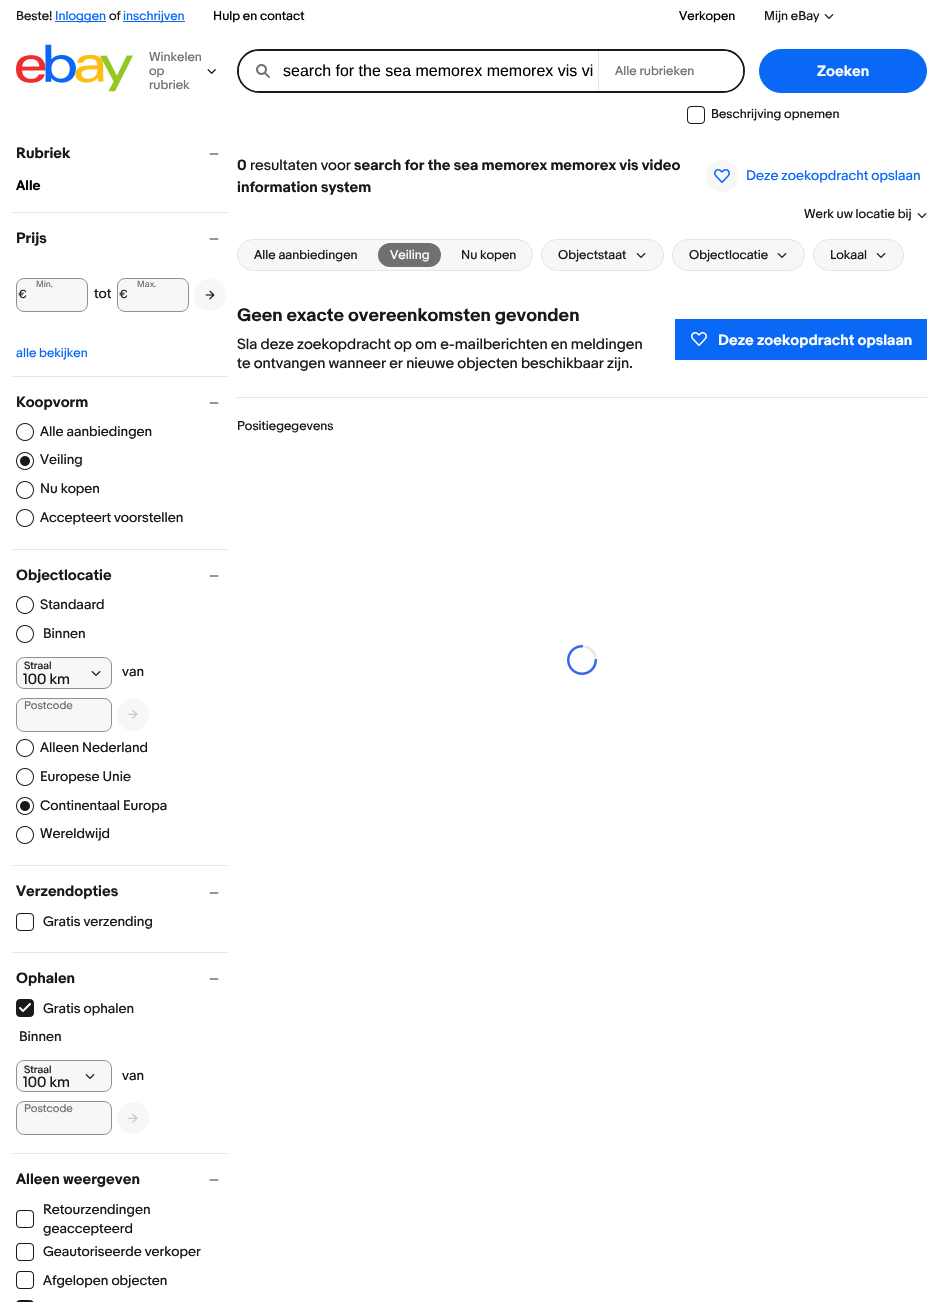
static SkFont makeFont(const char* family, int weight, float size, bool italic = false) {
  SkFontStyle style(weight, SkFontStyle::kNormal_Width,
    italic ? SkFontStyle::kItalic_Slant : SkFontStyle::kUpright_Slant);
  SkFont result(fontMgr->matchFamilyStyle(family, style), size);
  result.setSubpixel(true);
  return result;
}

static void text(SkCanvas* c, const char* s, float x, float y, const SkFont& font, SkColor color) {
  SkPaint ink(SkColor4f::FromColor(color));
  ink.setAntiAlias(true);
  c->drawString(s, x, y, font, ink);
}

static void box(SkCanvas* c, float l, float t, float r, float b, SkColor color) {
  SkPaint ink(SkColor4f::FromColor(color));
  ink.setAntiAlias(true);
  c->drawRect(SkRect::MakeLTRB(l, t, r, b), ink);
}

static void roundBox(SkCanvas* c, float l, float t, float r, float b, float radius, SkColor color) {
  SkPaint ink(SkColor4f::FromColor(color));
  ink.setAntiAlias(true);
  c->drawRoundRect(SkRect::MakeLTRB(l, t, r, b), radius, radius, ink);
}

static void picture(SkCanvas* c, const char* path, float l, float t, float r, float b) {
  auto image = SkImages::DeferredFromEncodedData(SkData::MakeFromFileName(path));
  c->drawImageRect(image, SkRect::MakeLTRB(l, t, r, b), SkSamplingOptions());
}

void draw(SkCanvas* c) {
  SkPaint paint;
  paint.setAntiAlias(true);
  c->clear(0xffffffff);
  SkFont face1 = makeFont("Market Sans", 400, 12);
  text(c, "Beste!", 16, 20, face1, 0xff191919);
  box(c, 55, 21, 106, 22, 0xff0968f6);
  text(c, "Inloggen", 55, 20, face1, 0xff0968f6);
  text(c, "of", 109, 20, face1, 0xff191919);
  box(c, 123, 21, 185, 22, 0xff0968f6);
  text(c, "inschrijven", 123, 20, face1, 0xff0968f6);
  text(c, "Hulp en contact", 213, 20, face1, 0xff000000);
  text(c, "Verkopen", 679, 20, face1, 0xff000000);
  text(c, "Mijn eBay", 764, 20, face1, 0xff191919);
  picture(c, "img_01.png", 824, 14, 834, 19);
  picture(c, "img_02.png", 16, 44, 133, 92);
  text(c, "Winkelen", 149, 61, face1, 0xff707070);
  text(c, "op", 149, 75, face1, 0xff707070);
  text(c, "rubriek", 149, 89, face1, 0xff707070);
  picture(c, "img_03.png", 207, 69, 216, 74);
  paint.setStyle(SkPaint::kStroke_Style);
  paint.setStrokeWidth(2);
  paint.setColor(0xff191919);
  c->drawRoundRect(SkRect::MakeLTRB(238, 50, 744, 92), 21, 21, paint);
  box(c, 598, 51, 599, 91, 0xffe5e5e5);
  paint.setStyle(SkPaint::kFill_Style);
  paint.setColor(0xffffffff);
  c->drawPath(SkPathBuilder().moveTo(259, 51).lineTo(598, 51).lineTo(598, 91).lineTo(259, 91).cubicTo(248, 91, 239, 82, 239, 71).cubicTo(239, 60, 248, 51, 259, 51).close().detach(), paint);
  picture(c, "img_04.png", 256, 64, 270, 78);
  SkFont face2 = makeFont("Liberation Sans", 400, 16);
  text(c, "search for the sea memorex memorex vis vi", 283, 76, face2, 0xff000000);
  c->drawPath(SkPathBuilder().moveTo(599, 51).lineTo(723, 51).cubicTo(734, 51, 743, 60, 743, 71).cubicTo(743, 82, 734, 91, 723, 91).lineTo(599, 91).close().detach(), paint);
  text(c, "Alle rubrieken", 615, 75, face1, 0xff707070);
  paint.setColor(0xff0968f6);
  c->drawRoundRect(SkRect::MakeLTRB(759.5f, 49.5f, 926.5f, 92.5f), 21.5f, 21.5f, paint);
  paint.setStyle(SkPaint::kStroke_Style);
  paint.setStrokeWidth(1);
  c->drawRoundRect(SkRect::MakeLTRB(759.5f, 49.5f, 926.5f, 92.5f), 21.5f, 21.5f, paint);
  SkFont face3 = makeFont("Market Sans", 700, 14);
  text(c, "Zoeken", 817, 76, face3, 0xffffffff);
  picture(c, "img_05.png", 687, 106, 705, 124);
  text(c, "Beschrijving opnemen", 711, 118, face1, 0xff191919);
  box(c, 12, 212, 228, 213, 0xffe5e5e5);
  text(c, "Rubriek", 16, 158, face3, 0xff191919);
  picture(c, "img_06.png", 209, 153, 219, 155);
  SkFont face4 = makeFont("Market Sans", 700, 13);
  text(c, "Alle", 16, 190, face4, 0xff000000);
  box(c, 12, 376, 228, 377, 0xffe5e5e5);
  text(c, "Prijs", 16, 243, face3, 0xff191919);
  picture(c, "img_06.png", 209, 238, 219, 240);
  paint.setStyle(SkPaint::kFill_Style);
  paint.setColor(0xfff7f7f7);
  c->drawRoundRect(SkRect::MakeLTRB(16.5f, 278.5f, 87.5f, 311.5f), 7.5f, 7.5f, paint);
  paint.setStyle(SkPaint::kStroke_Style);
  paint.setColor(0xff8f8f8f);
  c->drawRoundRect(SkRect::MakeLTRB(16.5f, 278.5f, 87.5f, 311.5f), 7.5f, 7.5f, paint);
  SkFont face5 = makeFont("Market Sans", 400, 8.5f);
  text(c, "Min.", 36, 287, face5, 0xff707070);
  SkFont face6 = makeFont("Market Sans", 400, 11);
  text(c, "€", 18, 298, face6, 0xff191919);
  SkFont face7 = makeFont("Market Sans", 400, 13);
  text(c, "tot", 94, 298, face7, 0xff191919);
  paint.setStyle(SkPaint::kFill_Style);
  paint.setColor(0xfff7f7f7);
  c->drawRoundRect(SkRect::MakeLTRB(117.5f, 278.5f, 188.5f, 311.5f), 7.5f, 7.5f, paint);
  paint.setStyle(SkPaint::kStroke_Style);
  paint.setColor(0xff8f8f8f);
  c->drawRoundRect(SkRect::MakeLTRB(117.5f, 278.5f, 188.5f, 311.5f), 7.5f, 7.5f, paint);
  text(c, "Max.", 137, 287, face5, 0xff707070);
  text(c, "€", 119, 298, face6, 0xff191919);
  paint.setStyle(SkPaint::kFill_Style);
  paint.setColor(0xfff7f7f7);
  c->drawCircle(210, 295, 16, paint);
  picture(c, "img_07.png", 205, 290, 215, 300);
  text(c, "alle bekijken", 16, 357, face1, 0xff0968f6);
  box(c, 12, 549, 228, 550, 0xffe5e5e5);
  text(c, "Koopvorm", 16, 407, face3, 0xff191919);
  picture(c, "img_06.png", 209, 402, 219, 404);
  picture(c, "img_08.png", 16, 423, 34, 441);
  text(c, "Alle aanbiedingen", 40, 436, face7, 0xff191919);
  picture(c, "img_09.png", 16, 452, 34, 470);
  text(c, "Veiling", 40, 464, face7, 0xff191919);
  picture(c, "img_08.png", 16, 481, 34, 499);
  text(c, "Nu kopen", 40, 493, face7, 0xff191919);
  picture(c, "img_08.png", 16, 509, 34, 527);
  text(c, "Accepteert voorstellen", 40, 522, face7, 0xff191919);
  box(c, 12, 865, 228, 866, 0xffe5e5e5);
  text(c, "Objectlocatie", 16, 580, face3, 0xff191919);
  picture(c, "img_06.png", 209, 575, 219, 577);
  picture(c, "img_08.png", 16, 596, 34, 614);
  text(c, "Standaard", 40, 609, face7, 0xff191919);
  picture(c, "img_08.png", 16, 625, 34, 643);
  text(c, "Binnen", 43, 638, face7, 0xff191919);
  c->drawRoundRect(SkRect::MakeLTRB(16.5f, 657.5f, 111.5f, 688.5f), 7.5f, 7.5f, paint);
  paint.setStyle(SkPaint::kStroke_Style);
  paint.setColor(0xff8f8f8f);
  c->drawRoundRect(SkRect::MakeLTRB(16.5f, 657.5f, 111.5f, 688.5f), 7.5f, 7.5f, paint);
  SkFont face8 = makeFont("Market Sans", 400, 10);
  text(c, "Straal", 24, 669, face8, 0xff191919);
  SkFont face9 = makeFont("Market Sans", 400, 14);
  text(c, "100 km", 23, 684, face9, 0xff191919);
  picture(c, "img_10.png", 91, 671, 101, 676);
  text(c, "van", 122, 676, face7, 0xff191919);
  paint.setStyle(SkPaint::kFill_Style);
  paint.setColor(0xfff7f7f7);
  c->drawRoundRect(SkRect::MakeLTRB(16.5f, 698.5f, 111.5f, 731.5f), 7.5f, 7.5f, paint);
  paint.setStyle(SkPaint::kStroke_Style);
  paint.setColor(0xff8f8f8f);
  c->drawRoundRect(SkRect::MakeLTRB(16.5f, 698.5f, 111.5f, 731.5f), 7.5f, 7.5f, paint);
  SkFont face10 = makeFont("Market Sans", 400, 10.5f);
  text(c, "Postcode", 24, 709, face10, 0xff707070);
  paint.setStyle(SkPaint::kFill_Style);
  paint.setColor(0xfff7f7f7);
  c->drawCircle(133, 715, 16, paint);
  picture(c, "img_11.png", 128, 709, 138, 719);
  picture(c, "img_08.png", 16, 739, 34, 757);
  text(c, "Alleen Nederland", 40, 752, face7, 0xff191919);
  picture(c, "img_08.png", 16, 768, 34, 786);
  text(c, "Europese Unie", 40, 781, face7, 0xff191919);
  picture(c, "img_09.png", 16, 797, 34, 815);
  text(c, "Continentaal Europa", 40, 810, face7, 0xff191919);
  picture(c, "img_08.png", 16, 826, 34, 844);
  text(c, "Wereldwijd", 40, 838, face7, 0xff191919);
  box(c, 12, 952, 228, 953, 0xffe5e5e5);
  text(c, "Verzendopties", 16, 896, face3, 0xff191919);
  picture(c, "img_06.png", 209, 892, 219, 894);
  picture(c, "img_05.png", 16, 913, 34, 931);
  text(c, "Gratis verzending", 43, 926, face7, 0xff191919);
  box(c, 12, 1153, 228, 1154, 0xffe5e5e5);
  text(c, "Ophalen", 16, 983, face3, 0xff191919);
  picture(c, "img_06.png", 209, 978, 219, 980);
  picture(c, "img_12.png", 16, 999, 34, 1017);
  text(c, "Gratis ophalen", 43, 1013, face7, 0xff191919);
  text(c, "Binnen", 19, 1041, face7, 0xff191919);
  c->drawRoundRect(SkRect::MakeLTRB(16.5f, 1060.5f, 111.5f, 1091.5f), 7.5f, 7.5f, paint);
  paint.setStyle(SkPaint::kStroke_Style);
  paint.setColor(0xff8f8f8f);
  c->drawRoundRect(SkRect::MakeLTRB(16.5f, 1060.5f, 111.5f, 1091.5f), 7.5f, 7.5f, paint);
  text(c, "Straal", 24, 1073, face8, 0xff191919);
  text(c, "100 km", 23, 1087, face9, 0xff191919);
  picture(c, "img_10.png", 85, 1074, 95, 1079);
  text(c, "van", 122, 1080, face7, 0xff191919);
  paint.setStyle(SkPaint::kFill_Style);
  paint.setColor(0xfff7f7f7);
  c->drawRoundRect(SkRect::MakeLTRB(16.5f, 1101.5f, 111.5f, 1134.5f), 7.5f, 7.5f, paint);
  paint.setStyle(SkPaint::kStroke_Style);
  paint.setColor(0xff8f8f8f);
  c->drawRoundRect(SkRect::MakeLTRB(16.5f, 1101.5f, 111.5f, 1134.5f), 7.5f, 7.5f, paint);
  text(c, "Postcode", 24, 1112, face10, 0xff707070);
  paint.setStyle(SkPaint::kFill_Style);
  paint.setColor(0xfff7f7f7);
  c->drawCircle(133, 1118, 16, paint);
  picture(c, "img_11.png", 128, 1113, 138, 1123);
  text(c, "Alleen weergeven", 16, 1184, face3, 0xff191919);
  picture(c, "img_06.png", 209, 1179, 219, 1181);
  picture(c, "img_05.png", 16, 1210, 34, 1228);
  text(c, "Retourzendingen", 43, 1214, face7, 0xff191919);
  text(c, "geaccepteerd", 43, 1233, face7, 0xff191919);
  picture(c, "img_05.png", 16, 1243, 34, 1261);
  text(c, "Geautoriseerde verkoper", 43, 1256, face7, 0xff191919);
  picture(c, "img_05.png", 16, 1271, 34, 1289);
  text(c, "Afgelopen objecten", 43, 1285, face7, 0xff191919);
  picture(c, "img_13.png", 16, 1300, 34, 1302);
  text(c, "0", 237, 170, face3, 0xff191919);
  text(c, "resultaten voor", 250, 170, face9, 0xff191919);
  text(c, "search for the sea memorex memorex vis video", 354, 170, face3, 0xff191919);
  text(c, "information system", 237, 192, face3, 0xff191919);
  c->drawCircle(722, 176, 16, paint);
  picture(c, "img_14.png", 714, 169, 730, 183);
  text(c, "Deze zoekopdracht opslaan", 746, 180, face7, 0xff0968f6);
  text(c, "Werk uw locatie bij", 804, 218, face1, 0xff191919);
  picture(c, "img_15.png", 917, 213, 927, 218);
  c->drawRoundRect(SkRect::MakeLTRB(237.5f, 239.5f, 532.5f, 270.5f), 15.5f, 15.5f, paint);
  paint.setStyle(SkPaint::kStroke_Style);
  paint.setColor(0xffe5e5e5);
  c->drawRoundRect(SkRect::MakeLTRB(237.5f, 239.5f, 532.5f, 270.5f), 15.5f, 15.5f, paint);
  text(c, "Alle aanbiedingen", 254, 259, face1, 0xff191919);
  roundBox(c, 378, 243, 441, 267, 12, 0xff707070);
  text(c, "Veiling", 390, 259, face1, 0xffffffff);
  text(c, "Nu kopen", 461, 259, face1, 0xff191919);
  paint.setStyle(SkPaint::kFill_Style);
  paint.setColor(0xfff7f7f7);
  c->drawRoundRect(SkRect::MakeLTRB(541.5f, 239.5f, 663.5f, 270.5f), 15.5f, 15.5f, paint);
  paint.setStyle(SkPaint::kStroke_Style);
  paint.setColor(0xffe5e5e5);
  c->drawRoundRect(SkRect::MakeLTRB(541.5f, 239.5f, 663.5f, 270.5f), 15.5f, 15.5f, paint);
  text(c, "Objectstaat", 558, 259, face1, 0xff191919);
  picture(c, "img_10.png", 636, 253, 646, 258);
  paint.setStyle(SkPaint::kFill_Style);
  paint.setColor(0xfff7f7f7);
  c->drawRoundRect(SkRect::MakeLTRB(672.5f, 239.5f, 804.5f, 270.5f), 15.5f, 15.5f, paint);
  paint.setStyle(SkPaint::kStroke_Style);
  paint.setColor(0xffe5e5e5);
  c->drawRoundRect(SkRect::MakeLTRB(672.5f, 239.5f, 804.5f, 270.5f), 15.5f, 15.5f, paint);
  text(c, "Objectlocatie", 689, 259, face1, 0xff191919);
  picture(c, "img_10.png", 777, 253, 787, 258);
  paint.setStyle(SkPaint::kFill_Style);
  paint.setColor(0xfff7f7f7);
  c->drawRoundRect(SkRect::MakeLTRB(813.5f, 239.5f, 903.5f, 270.5f), 15.5f, 15.5f, paint);
  paint.setStyle(SkPaint::kStroke_Style);
  paint.setColor(0xffe5e5e5);
  c->drawRoundRect(SkRect::MakeLTRB(813.5f, 239.5f, 903.5f, 270.5f), 15.5f, 15.5f, paint);
  text(c, "Lokaal", 830, 259, face1, 0xff191919);
  picture(c, "img_10.png", 876, 253, 886, 258);
  box(c, 237, 397, 927, 398, 0xffe5e5e5);
  SkFont face11 = makeFont("Market Sans", 700, 17);
  text(c, "Geen exacte overeenkomsten gevonden", 237, 321, face11, 0xff191919);
  text(c, "Sla deze zoekopdracht op om e-mailberichten en meldingen", 237, 349, face9, 0xff191919);
  text(c, "te ontvangen wanneer er nieuwe objecten beschikbaar zijn.", 237, 368, face9, 0xff191919);
  box(c, 675, 319, 927, 360, 0xff0968f6);
  picture(c, "img_16.png", 691, 332, 707, 346);
  text(c, "Deze zoekopdracht opslaan", 718, 345, face3, 0xffffffff);
  text(c, "Positiegegevens", 237, 430, face1, 0xff191919);
  picture(c, "img_17.png", 567, 645, 597, 675);
}
